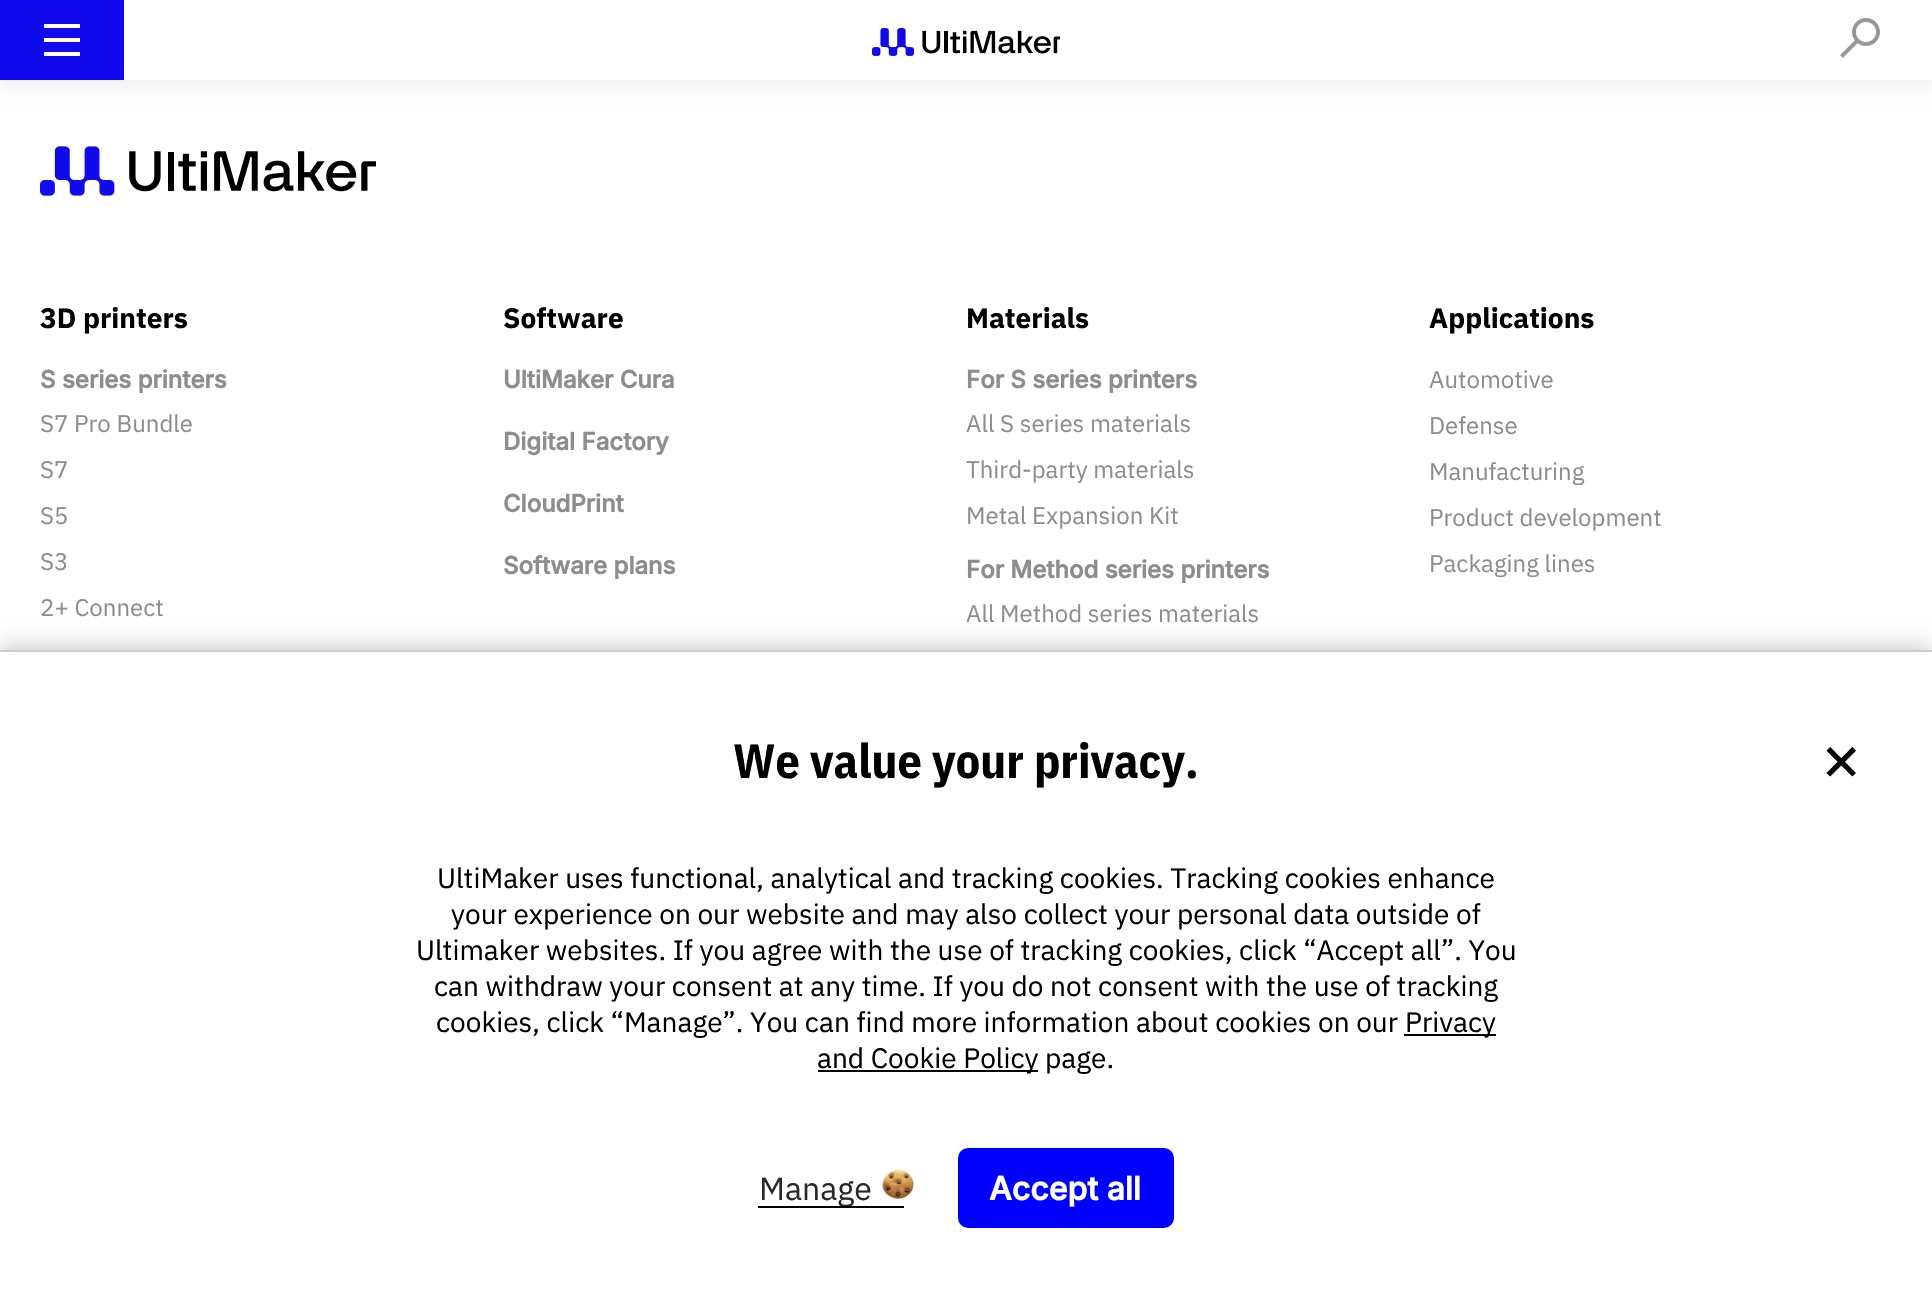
static SkFont makeFont(const char* family, int weight, float size, bool italic = false) {
  SkFontStyle style(weight, SkFontStyle::kNormal_Width,
    italic ? SkFontStyle::kItalic_Slant : SkFontStyle::kUpright_Slant);
  SkFont result(fontMgr->matchFamilyStyle(family, style), size);
  result.setSubpixel(true);
  return result;
}

static void text(SkCanvas* c, const char* s, float x, float y, const SkFont& font, SkColor color) {
  SkPaint ink(SkColor4f::FromColor(color));
  ink.setAntiAlias(true);
  c->drawString(s, x, y, font, ink);
}

static void box(SkCanvas* c, float l, float t, float r, float b, SkColor color) {
  SkPaint ink(SkColor4f::FromColor(color));
  ink.setAntiAlias(true);
  c->drawRect(SkRect::MakeLTRB(l, t, r, b), ink);
}

static void roundBox(SkCanvas* c, float l, float t, float r, float b, float radius, SkColor color) {
  SkPaint ink(SkColor4f::FromColor(color));
  ink.setAntiAlias(true);
  c->drawRoundRect(SkRect::MakeLTRB(l, t, r, b), radius, radius, ink);
}

static void picture(SkCanvas* c, const char* path, float l, float t, float r, float b) {
  auto image = SkImages::DeferredFromEncodedData(SkData::MakeFromFileName(path));
  c->drawImageRect(image, SkRect::MakeLTRB(l, t, r, b), SkSamplingOptions());
}

void draw(SkCanvas* c) {
  SkPaint paint;
  paint.setAntiAlias(true);
  c->clear(0xffffffff);
  paint.setColor(0x12000000);
  paint.setMaskFilter(SkMaskFilter::MakeBlur(kNormal_SkBlurStyle, 9));
  c->drawRect(SkRect::MakeLTRB(-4, -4, 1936, 84), paint);
  paint.setMaskFilter(nullptr);
  box(c, 124, 0, 1932, 80, 0xffffffff);
  box(c, 0, 0, 124, 80, 0xff100aed);
  paint.setColor(0xffffffff);
  c->drawPath(SkPathBuilder().moveTo(80, 42).lineTo(44, 42).lineTo(44, 38).lineTo(80, 38).close().moveTo(80, 24).lineTo(44, 24).lineTo(44, 28).lineTo(80, 28).close().moveTo(80, 52).lineTo(44, 52).lineTo(44, 56).lineTo(80, 56).close().detach(), paint);
  picture(c, "img_01.png", 872, 28, 1060, 56);
  picture(c, "img_02.png", 1840, 18, 1880, 58);
  picture(c, "img_03.png", 40, 146, 376, 196);
  SkFont face1 = makeFont("IBM Plex Sans", 700, 28);
  text(c, "3D printers", 40, 328, face1, 0xff000000);
  SkFont face2 = makeFont("Inter", 700, 24);
  text(c, "S series printers", 40, 388, face2, 0xff8d8d8d);
  SkFont face3 = makeFont("IBM Plex Sans", 400, 24);
  text(c, "S7 Pro Bundle", 40, 432, face3, 0xff8d8d8d);
  text(c, "S7", 40, 478, face3, 0xff8d8d8d);
  text(c, "S5", 40, 524, face3, 0xff8d8d8d);
  text(c, "S3", 40, 570, face3, 0xff8d8d8d);
  text(c, "2+ Connect", 40, 616, face3, 0xff8d8d8d);
  text(c, "Software", 503, 328, face1, 0xff000000);
  text(c, "UltiMaker Cura", 503, 388, face2, 0xff8d8d8d);
  text(c, "Digital Factory", 503, 450, face2, 0xff8d8d8d);
  text(c, "CloudPrint", 503, 512, face2, 0xff8d8d8d);
  text(c, "Software plans", 503, 574, face2, 0xff8d8d8d);
  text(c, "Materials", 966, 328, face1, 0xff000000);
  text(c, "For S series printers", 966, 388, face2, 0xff8d8d8d);
  text(c, "All S series materials", 966, 432, face3, 0xff8d8d8d);
  text(c, "Third-party materials", 966, 478, face3, 0xff8d8d8d);
  text(c, "Metal Expansion Kit", 966, 524, face3, 0xff8d8d8d);
  text(c, "For Method series printers", 966, 578, face2, 0xff8d8d8d);
  text(c, "All Method series materials", 966, 622, face3, 0xff8d8d8d);
  text(c, "Applications", 1429, 328, face1, 0xff000000);
  text(c, "Automotive", 1429, 388, face3, 0xff8d8d8d);
  text(c, "Defense", 1429, 434, face3, 0xff8d8d8d);
  text(c, "Manufacturing", 1429, 480, face3, 0xff8d8d8d);
  text(c, "Product development", 1429, 526, face3, 0xff8d8d8d);
  text(c, "Packaging lines", 1429, 572, face3, 0xff8d8d8d);
  paint.setColor(0x33000000);
  paint.setMaskFilter(SkMaskFilter::MakeBlur(kNormal_SkBlurStyle, 10));
  c->drawRect(SkRect::MakeLTRB(0, 646, 1932, 1304), paint);
  paint.setMaskFilter(nullptr);
  box(c, 0, 652, 1932, 1307, 0xffffffff);
  box(c, 0, 650, 1932, 652, 0xffcccccc);
  SkFont face4 = makeFont("IBM Plex Sans Condensed", 700, 48);
  text(c, "We value your privacy.", 733, 778, face4, 0xff000000);
  SkFont face5 = makeFont("IBM Plex Sans", 400, 28);
  text(c, "UltiMaker uses functional, analytical and tracking cookies. Tracking cookies enhance", 437, 888, face5, 0xff000000);
  text(c, "your experience on our website and may also collect your personal data outside of", 451, 924, face5, 0xff000000);
  text(c, "Ultimaker websites. If you agree with the use of tracking cookies, click “Accept all”. You", 416, 960, face5, 0xff000000);
  text(c, "can withdraw your consent at any time. If you do not consent with the use of tracking", 434, 996, face5, 0xff000000);
  text(c, "cookies, click “Manage”. You can find more information about cookies on our", 436, 1032, face5, 0xff000000);
  box(c, 1404, 1034, 1496, 1036, 0xff000000);
  text(c, "Privacy", 1405, 1032, face5, 0xff000000);
  box(c, 818, 1070, 1038, 1072, 0xff000000);
  text(c, "and Cookie Policy page.", 817, 1068, face5, 0xff000000);
  SkFont face6 = makeFont("Inter", 400, 64);
  text(c, "×", 1820, 780, face6, 0xff000000);
  SkFont face7 = makeFont("IBM Plex Sans", 400, 32);
  text(c, "Manage", 759, 1200, face7, 0xff282828);
  picture(c, "img_04.png", 882, 1169, 914, 1199);
  box(c, 758, 1206, 904, 1208, 0xff000000);
  roundBox(c, 958, 1148, 1174, 1228, 10, 0xff0000ff);
  SkFont face8 = makeFont("Inter", 700, 32);
  text(c, "Accept all", 989, 1200, face8, 0xffffffff);
}
